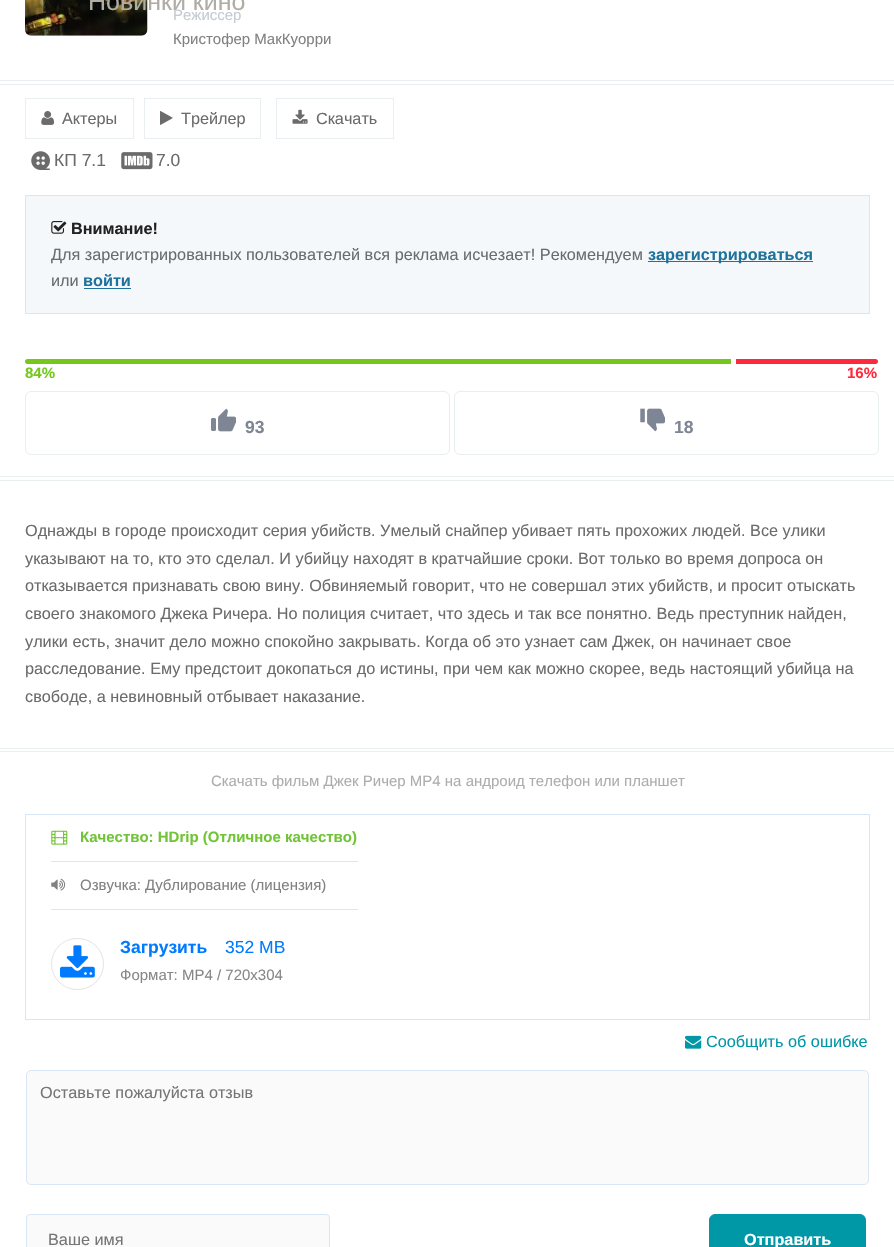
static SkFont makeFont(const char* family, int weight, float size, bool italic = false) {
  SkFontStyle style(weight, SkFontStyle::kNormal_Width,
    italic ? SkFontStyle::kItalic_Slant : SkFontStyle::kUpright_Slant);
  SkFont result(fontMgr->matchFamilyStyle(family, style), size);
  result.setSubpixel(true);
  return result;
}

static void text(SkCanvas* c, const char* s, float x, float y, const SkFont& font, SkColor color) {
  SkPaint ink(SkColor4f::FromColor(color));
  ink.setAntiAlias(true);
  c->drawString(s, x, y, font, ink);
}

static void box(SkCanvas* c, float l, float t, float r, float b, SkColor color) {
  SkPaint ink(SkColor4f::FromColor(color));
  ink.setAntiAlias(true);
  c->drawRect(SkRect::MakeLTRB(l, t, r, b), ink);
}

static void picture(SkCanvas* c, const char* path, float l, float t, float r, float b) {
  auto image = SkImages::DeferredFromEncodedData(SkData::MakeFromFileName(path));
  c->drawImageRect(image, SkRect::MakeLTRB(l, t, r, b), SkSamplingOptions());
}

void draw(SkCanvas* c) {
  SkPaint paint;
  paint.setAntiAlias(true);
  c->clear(0xffffffff);
  picture(c, "img_01.png", 25, 0, 148, 36);
  SkFont face1 = makeFont("Liberation Sans", 400, 25);
  text(c, "Новинки кино", 88, 10, face1, 0xffafada5);
  SkFont face2 = makeFont("Liberation Sans", 400, 15);
  text(c, "Режиссер", 173, 20, face2, 0xffc3ccd1);
  text(c, "Кристофер МакКуорри", 173, 44, face2, 0xff828181);
  box(c, 0, 80, 894, 81, 0xffe9eef0);
  box(c, 0, 84, 894, 85, 0xffe9eef0);
  paint.setStyle(SkPaint::kStroke_Style);
  paint.setStrokeWidth(1);
  paint.setColor(0xffe9eef0);
  c->drawRect(SkRect::MakeLTRB(25.5f, 98.5f, 133.5f, 138.5f), paint);
  picture(c, "img_02.png", 41, 111, 54, 125);
  SkFont face3 = makeFont("Liberation Sans", 400, 16.25f);
  text(c, "Актеры", 62, 124, face3, 0xff6b6b6b);
  c->drawRect(SkRect::MakeLTRB(144.5f, 98.5f, 260.5f, 138.5f), paint);
  picture(c, "img_03.png", 160, 111, 173, 125);
  text(c, "Трейлер", 181, 124, face3, 0xff6b6b6b);
  c->drawRect(SkRect::MakeLTRB(276.5f, 98.5f, 393.5f, 138.5f), paint);
  picture(c, "img_04.png", 292, 109, 308, 124);
  text(c, "Скачать", 316, 124, face3, 0xff6b6b6b);
  picture(c, "img_05.png", 31, 151, 50, 170);
  SkFont face4 = makeFont("Liberation Sans", 400, 17.5f);
  text(c, "КП 7.1", 54, 166, face4, 0xff6b6b6b);
  picture(c, "img_06.png", 121, 152, 153, 170);
  text(c, "7.0", 156, 166, face4, 0xff6b6b6b);
  paint.setStyle(SkPaint::kFill_Style);
  paint.setColor(0xfff5f8fb);
  c->drawRect(SkRect::MakeLTRB(25.5f, 195.5f, 869.5f, 313.5f), paint);
  paint.setStyle(SkPaint::kStroke_Style);
  paint.setColor(0xffd8e6f7);
  c->drawRect(SkRect::MakeLTRB(25.5f, 195.5f, 869.5f, 313.5f), paint);
  picture(c, "img_07.png", 51, 221, 67, 234);
  SkFont face5 = makeFont("Liberation Sans", 700, 16.25f);
  text(c, "Внимание!", 71, 234, face5, 0xff212121);
  text(c, "Для зарегистрированных пользователей вся реклама исчезает! Рекомендуем", 51, 260, face3, 0xff6b6b6b);
  box(c, 648, 261, 813, 262, 0xff1e729b);
  text(c, "зарегистрироваться", 648, 260, face5, 0xff1e729b);
  text(c, "или", 51, 286, face3, 0xff6b6b6b);
  text(c, "войти", 83, 286, face5, 0xff1e729b);
  box(c, 84, 288, 131, 289, 0xff1e729b);
  paint.setStyle(SkPaint::kFill_Style);
  paint.setColor(0xff75c71b);
  c->drawPath(SkPathBuilder().moveTo(27.5f, 359).lineTo(731, 359).lineTo(731, 364).lineTo(27.5f, 364).cubicTo(26, 364, 25, 363, 25, 361.5f).cubicTo(25, 360, 26, 359, 27.5f, 359).close().detach(), paint);
  paint.setColor(0xffff293d);
  c->drawPath(SkPathBuilder().moveTo(736, 359).lineTo(875.5f, 359).cubicTo(877, 359, 878, 360, 878, 361.5f).cubicTo(878, 363, 877, 364, 875.5f, 364).lineTo(736, 364).close().detach(), paint);
  SkFont face6 = makeFont("Liberation Sans", 700, 15);
  text(c, "84%", 25, 378, face6, 0xff75c71b);
  text(c, "16%", 847, 378, face6, 0xffff293d);
  paint.setStyle(SkPaint::kStroke_Style);
  paint.setColor(0xffe9eef0);
  c->drawRoundRect(SkRect::MakeLTRB(25.5f, 391.5f, 449.5f, 454.5f), 5.5f, 5.5f, paint);
  picture(c, "img_08.png", 211, 408, 236, 432);
  SkFont face7 = makeFont("Liberation Sans", 700, 17.5f);
  text(c, "93", 245, 433, face7, 0xff7e8594);
  c->drawRoundRect(SkRect::MakeLTRB(454.5f, 391.5f, 878.5f, 454.5f), 5.5f, 5.5f, paint);
  picture(c, "img_09.png", 640, 408, 665, 432);
  text(c, "18", 674, 433, face7, 0xff7e8594);
  box(c, 0, 476, 894, 477, 0xffe9eef0);
  box(c, 0, 480, 894, 481, 0xffe9eef0);
  text(c, "Однажды в городе происходит серия убийств. Умелый снайпер убивает пять прохожих людей. Все улики", 25, 536, face3, 0xff6b6b6b);
  text(c, "указывают на то, кто это сделал. И убийцу находят в кратчайшие сроки. Вот только во время допроса он", 25, 564, face3, 0xff6b6b6b);
  text(c, "отказывается признавать свою вину. Обвиняемый говорит, что не совершал этих убийств, и просит отыскать", 25, 591, face3, 0xff6b6b6b);
  text(c, "своего знакомого Джека Ричера. Но полиция считает, что здесь и так все понятно. Ведь преступник найден,", 25, 619, face3, 0xff6b6b6b);
  text(c, "улики есть, значит дело можно спокойно закрывать. Когда об это узнает сам Джек, он начинает свое", 25, 647, face3, 0xff6b6b6b);
  text(c, "расследование. Ему предстоит докопаться до истины, при чем как можно скорее, ведь настоящий убийца на", 25, 674, face3, 0xff6b6b6b);
  text(c, "свободе, а невиновный отбывает наказание.", 25, 702, face3, 0xff6b6b6b);
  box(c, 0, 748, 894, 749, 0xffe9eef0);
  box(c, 0, 751, 894, 752, 0xffe9eef0);
  text(c, "Скачать фильм Джек Ричер MP4 на андроид телефон или планшет", 211, 786, face2, 0xffafacac);
  paint.setColor(0xffd8e6f7);
  c->drawRect(SkRect::MakeLTRB(25.5f, 814.5f, 869.5f, 1019.5f), paint);
  box(c, 51, 861, 358, 862, 0xffe4e4e4);
  picture(c, "img_10.png", 51, 830, 68, 845);
  text(c, "Качество: HDrip (Отличное качество)", 80, 842, face6, 0xff71c337);
  box(c, 51, 909, 358, 910, 0xffe4e4e4);
  picture(c, "img_11.png", 51, 878, 66, 891);
  text(c, "Озвучка: Дублирование (лицензия)", 80, 890, face2, 0xff828181);
  paint.setColor(0xffe4e4e4);
  c->drawRoundRect(SkRect::MakeLTRB(51.5f, 938.5f, 103.5f, 989.5f), 25.5f, 25.5f, paint);
  picture(c, "img_12.png", 60, 945, 95, 978);
  text(c, "Загрузить", 120, 953, face7, 0xff007aff);
  text(c, "352 MB", 225, 953, face4, 0xff007aff);
  text(c, "Формат: MP4 / 720x304", 120, 980, face2, 0xff878787);
  picture(c, "img_13.png", 685, 1035, 702, 1049);
  text(c, "Сообщить об ошибке", 706, 1047, face3, 0xff0097a7);
  paint.setStyle(SkPaint::kFill_Style);
  paint.setColor(0xfffafafa);
  c->drawRoundRect(SkRect::MakeLTRB(26.5f, 1070.5f, 868.5f, 1184.5f), 4.5f, 4.5f, paint);
  paint.setStyle(SkPaint::kStroke_Style);
  paint.setColor(0xffd8e6f7);
  c->drawRoundRect(SkRect::MakeLTRB(26.5f, 1070.5f, 868.5f, 1184.5f), 4.5f, 4.5f, paint);
  text(c, "Оставьте пожалуйста отзыв", 40, 1098, face3, 0xff757575);
  paint.setStyle(SkPaint::kFill_Style);
  paint.setColor(0xfffafafa);
  c->drawRoundRect(SkRect::MakeLTRB(26.5f, 1214.5f, 329.5f, 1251.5f), 3.5f, 3.5f, paint);
  paint.setStyle(SkPaint::kStroke_Style);
  paint.setColor(0xffd8e6f7);
  c->drawRoundRect(SkRect::MakeLTRB(26.5f, 1214.5f, 329.5f, 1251.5f), 3.5f, 3.5f, paint);
  text(c, "Ваше имя", 48, 1245, face3, 0xff757575);
  paint.setStyle(SkPaint::kFill_Style);
  paint.setColor(0xff0097a7);
  c->drawRoundRect(SkRect::MakeLTRB(709.5f, 1214.5f, 865.5f, 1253.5f), 5.5f, 5.5f, paint);
  paint.setStyle(SkPaint::kStroke_Style);
  c->drawRoundRect(SkRect::MakeLTRB(709.5f, 1214.5f, 865.5f, 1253.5f), 5.5f, 5.5f, paint);
  text(c, "Отправить", 744, 1245, face5, 0xffffffff);
}
